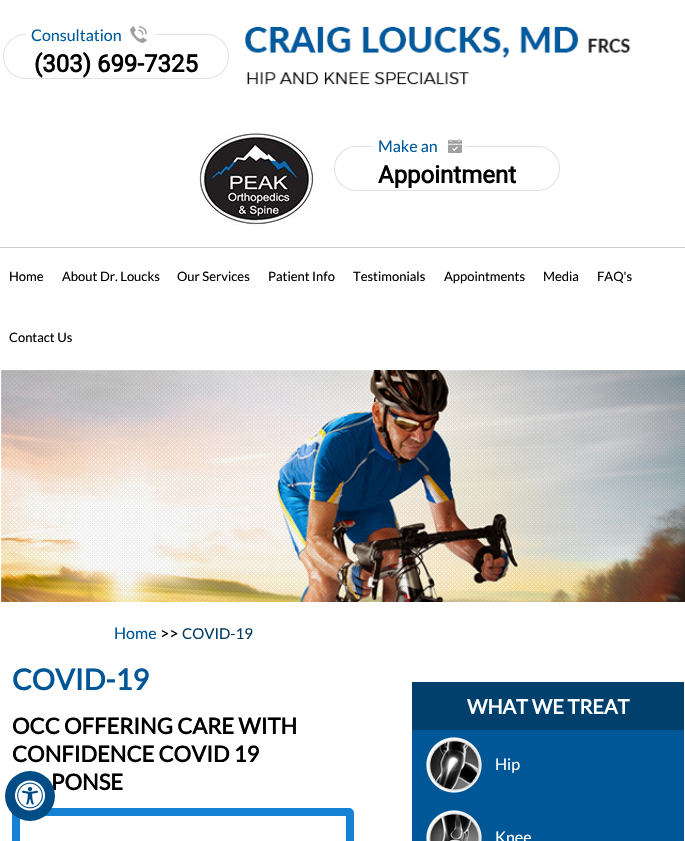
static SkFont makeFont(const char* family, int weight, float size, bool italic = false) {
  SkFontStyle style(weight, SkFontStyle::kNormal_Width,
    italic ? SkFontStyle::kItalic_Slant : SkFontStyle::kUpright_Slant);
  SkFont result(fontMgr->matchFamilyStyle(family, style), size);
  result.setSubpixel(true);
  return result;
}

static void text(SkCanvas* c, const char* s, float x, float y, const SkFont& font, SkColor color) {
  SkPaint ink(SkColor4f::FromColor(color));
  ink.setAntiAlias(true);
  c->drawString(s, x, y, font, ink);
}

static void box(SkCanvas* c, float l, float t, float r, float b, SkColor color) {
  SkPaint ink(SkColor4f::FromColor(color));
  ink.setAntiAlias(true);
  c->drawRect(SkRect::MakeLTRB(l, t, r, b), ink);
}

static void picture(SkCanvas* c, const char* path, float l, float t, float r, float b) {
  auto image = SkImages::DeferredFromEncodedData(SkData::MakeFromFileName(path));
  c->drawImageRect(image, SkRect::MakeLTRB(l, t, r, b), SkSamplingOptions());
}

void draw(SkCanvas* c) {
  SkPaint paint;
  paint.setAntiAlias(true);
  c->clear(0xffffffff);
  box(c, 0, 247, 685, 248, 0xffcccccc);
  picture(c, "img_02.png", 3, 34, 229, 79);
  box(c, 26, 34, 155, 35, 0xffffffff);
  picture(c, "img_01.png", 130, 26, 147, 43);
  SkFont face1 = makeFont("Lato", 400, 16);
  text(c, "Consultation", 31, 41, face1, 0xff005a9d);
  SkFont face2 = makeFont("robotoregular", 700, 24);
  text(c, "(303) 699-7325", 34, 72, face2, 0xff000000);
  picture(c, "img_03.png", 244, 21, 631, 85);
  picture(c, "img_04.png", 199, 131, 314, 226);
  picture(c, "img_02.png", 334, 146, 560, 191);
  box(c, 373, 146, 466, 147, 0xffffffff);
  picture(c, "img_05.png", 448, 139, 462, 153);
  text(c, "Make an", 378, 152, face1, 0xff005a9d);
  text(c, "Appointment", 378, 183, face2, 0xff000000);
  SkFont face3 = makeFont("Lato", 400, 13);
  text(c, "Home", 9, 281, face3, 0xff000000);
  text(c, "About Dr. Loucks", 62, 281, face3, 0xff000000);
  text(c, "Our Services", 177, 281, face3, 0xff000000);
  text(c, "Patient Info", 268, 281, face3, 0xff000000);
  text(c, "Testimonials", 353, 281, face3, 0xff000000);
  text(c, "Appointments", 444, 281, face3, 0xff000000);
  text(c, "Media", 543, 281, face3, 0xff000000);
  text(c, "FAQ's", 597, 281, face3, 0xff000000);
  text(c, "Contact Us", 9, 342, face3, 0xff000000);
  picture(c, "img_06.png", 1, 370, 685, 602);
  text(c, "Home", 114, 639, face1, 0xff005696);
  text(c, ">>", 160, 639, face1, 0xff000000);
  SkFont face4 = makeFont("Lato", 400, 15);
  text(c, "COVID-19", 182, 639, face4, 0xff033a63);
  SkFont face5 = makeFont("Lato", 700, 29);
  text(c, "COVID-19", 12, 690, face5, 0xff005696);
  SkFont face6 = makeFont("Lato", 700, 22);
  text(c, "OCC OFFERING CARE WITH", 12, 734, face6, 0xff000000);
  text(c, "CONFIDENCE COVID 19", 12, 762, face6, 0xff000000);
  text(c, "PONSE", 51, 790, face6, 0xff000000);
  paint.setStyle(SkPaint::kStroke_Style);
  paint.setStrokeWidth(8);
  paint.setColor(0xff1682d5);
  c->drawRoundRect(SkRect::MakeLTRB(16, 812, 350, 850), 1, 1, paint);
  box(c, 412, 730, 684, 841, 0xff005797);
  box(c, 412, 682, 684, 730, 0xff013f6d);
  SkFont face7 = makeFont("Lato", 700, 20);
  text(c, "WHAT WE TREAT", 467, 714, face7, 0xffffffff);
  picture(c, "img_07.png", 426, 737, 482, 793);
  text(c, "Hip", 495, 770, face1, 0xffffffff);
  picture(c, "img_08.png", 426, 810, 482, 841);
  text(c, "Knee", 495, 843, face1, 0xffffffff);
  paint.setStyle(SkPaint::kFill_Style);
  paint.setColor(0xff004d86);
  c->drawCircle(30, 796, 25, paint);
  picture(c, "img_09.png", 15, 780, 45, 811);
}
